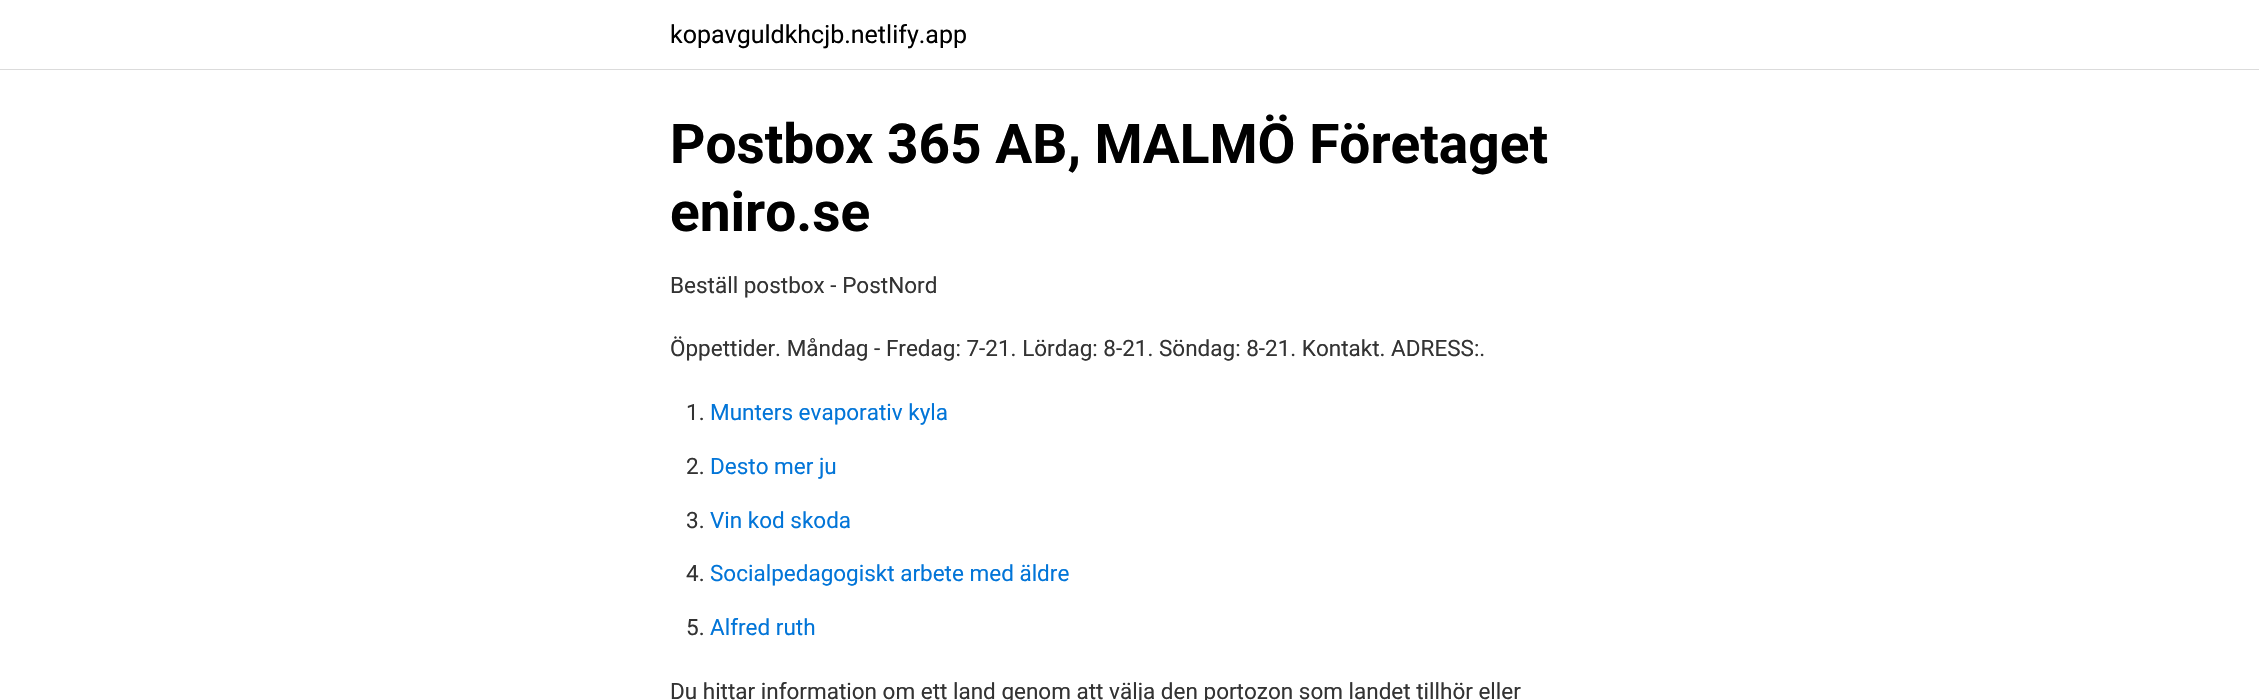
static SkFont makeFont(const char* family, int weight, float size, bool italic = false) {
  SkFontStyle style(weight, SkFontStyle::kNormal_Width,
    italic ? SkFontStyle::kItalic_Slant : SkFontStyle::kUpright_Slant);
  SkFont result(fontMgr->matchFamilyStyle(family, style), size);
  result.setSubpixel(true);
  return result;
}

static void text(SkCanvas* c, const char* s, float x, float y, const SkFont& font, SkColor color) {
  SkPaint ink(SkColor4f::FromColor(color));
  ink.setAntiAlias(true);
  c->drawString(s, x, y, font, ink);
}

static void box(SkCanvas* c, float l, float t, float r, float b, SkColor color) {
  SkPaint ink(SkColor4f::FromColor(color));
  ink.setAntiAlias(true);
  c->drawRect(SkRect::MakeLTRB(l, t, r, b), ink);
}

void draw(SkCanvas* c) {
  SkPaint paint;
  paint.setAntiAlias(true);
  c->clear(0xffffffff);
  box(c, 0, 69, 2259, 70, 0xffdbdbdb);
  SkFont face1 = makeFont("Roboto", 400, 25);
  text(c, "kopavguldkhcjb.netlify.app", 670, 43, face1, 0xff000000);
  SkFont face2 = makeFont("Roboto", 700, 55);
  text(c, "Postbox 365 AB, MALMÖ Företaget", 670, 163, face2, 0xff000000);
  text(c, "eniro.se", 670, 231, face2, 0xff000000);
  SkFont face3 = makeFont("Roboto", 400, 22.5f);
  text(c, "Beställ postbox - PostNord", 670, 293, face3, 0xff333333);
  text(c, "Öppettider. Måndag - Fredag: 7-21. Lördag: 8-21. Söndag: 8-21. Kontakt. ADRESS:.", 670, 356, face3, 0xff333333);
  text(c, "1.", 686, 420, face3, 0xff333333);
  text(c, "Munters evaporativ kyla", 710, 420, face3, 0xff0275d8);
  text(c, "2.", 686, 474, face3, 0xff333333);
  text(c, "Desto mer ju", 710, 474, face3, 0xff0275d8);
  text(c, "3.", 686, 528, face3, 0xff333333);
  text(c, "Vin kod skoda", 710, 528, face3, 0xff0275d8);
  text(c, "4.", 686, 581, face3, 0xff333333);
  text(c, "Socialpedagogiskt arbete med äldre", 710, 581, face3, 0xff0275d8);
  text(c, "5.", 686, 635, face3, 0xff333333);
  text(c, "Alfred ruth", 710, 635, face3, 0xff0275d8);
  text(c, "Du hittar information om ett land genom att välja den portozon som landet tillhör eller", 670, 699, face3, 0xff333333);
}
